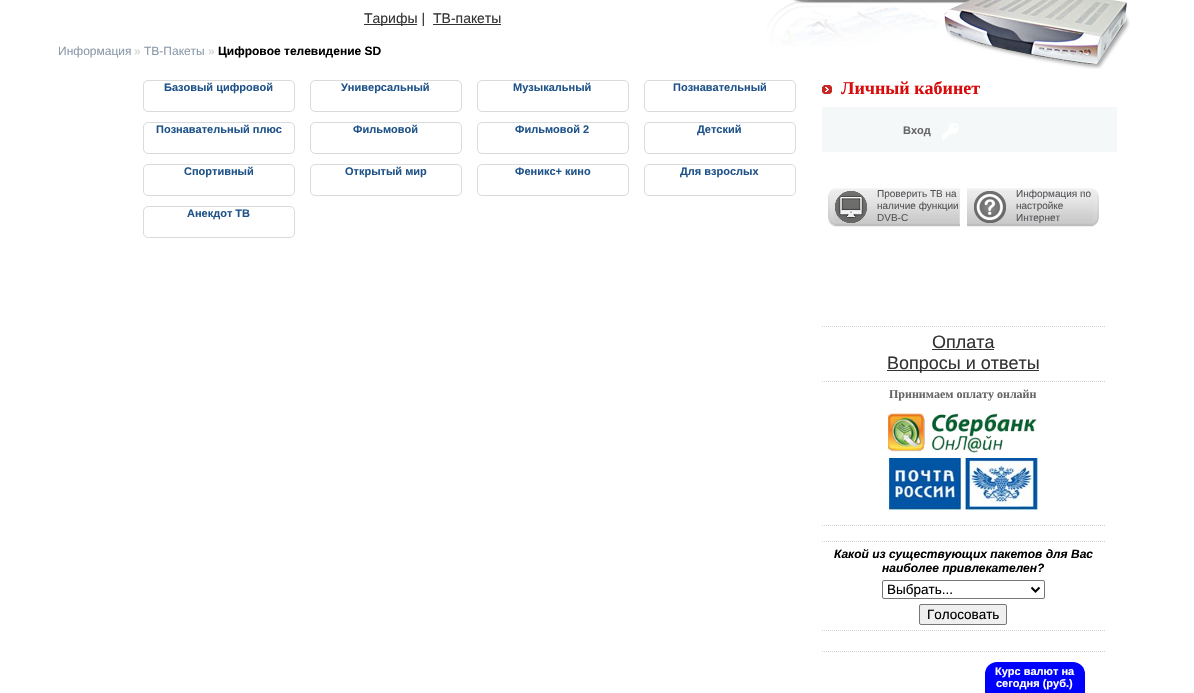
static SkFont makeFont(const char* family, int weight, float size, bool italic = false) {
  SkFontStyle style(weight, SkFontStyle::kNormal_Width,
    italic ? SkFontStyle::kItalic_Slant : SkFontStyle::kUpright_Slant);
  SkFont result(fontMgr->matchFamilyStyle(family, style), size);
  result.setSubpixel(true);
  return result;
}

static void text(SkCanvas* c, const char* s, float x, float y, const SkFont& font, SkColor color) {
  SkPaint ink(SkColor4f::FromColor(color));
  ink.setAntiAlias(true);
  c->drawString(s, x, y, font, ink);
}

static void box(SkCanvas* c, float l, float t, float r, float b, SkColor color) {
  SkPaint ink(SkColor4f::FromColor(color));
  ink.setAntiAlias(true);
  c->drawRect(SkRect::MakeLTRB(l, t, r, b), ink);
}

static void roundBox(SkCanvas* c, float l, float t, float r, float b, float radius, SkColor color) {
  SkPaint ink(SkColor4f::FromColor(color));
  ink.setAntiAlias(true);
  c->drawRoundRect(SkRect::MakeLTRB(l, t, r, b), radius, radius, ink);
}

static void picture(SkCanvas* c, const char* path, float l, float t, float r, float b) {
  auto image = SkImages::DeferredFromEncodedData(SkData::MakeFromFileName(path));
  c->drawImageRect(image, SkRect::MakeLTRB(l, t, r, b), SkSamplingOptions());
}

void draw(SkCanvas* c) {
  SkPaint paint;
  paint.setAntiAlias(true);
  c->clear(0xffffffff);
  picture(c, "img_02.png", 767, 0, 1114, 46);
  picture(c, "img_01.png", 944, 0, 1130, 69);
  box(c, 364, 24, 417, 25, 0xff333333);
  SkFont face1 = makeFont("Liberation Sans", 400, 14);
  text(c, "Тарифы |", 364, 23, face1, 0xff333333);
  text(c, "ТВ-пакеты", 433, 23, face1, 0xff333333);
  box(c, 433, 24, 501, 25, 0xff333333);
  SkFont face2 = makeFont("Liberation Sans", 400, 12);
  text(c, "Информация", 58, 55, face2, 0xff8b9aaa);
  SkFont face3 = makeFont("Liberation Sans", 700, 12);
  text(c, "»", 134, 55, face3, 0xffdadada);
  text(c, "ТВ-Пакеты", 144, 55, face2, 0xff8b9aaa);
  text(c, "»", 208, 55, face3, 0xffdadada);
  text(c, "Цифровое телевидение SD", 218, 55, face3, 0xff000000);
  paint.setStyle(SkPaint::kStroke_Style);
  paint.setStrokeWidth(1);
  paint.setColor(0xffdadada);
  c->drawRoundRect(SkRect::MakeLTRB(143.5f, 80.5f, 294.5f, 111.5f), 4.5f, 4.5f, paint);
  SkFont face4 = makeFont("Liberation Sans", 700, 11);
  text(c, "Базовый цифровой", 164, 91, face4, 0xff1f5389);
  c->drawRoundRect(SkRect::MakeLTRB(310.5f, 80.5f, 461.5f, 111.5f), 4.5f, 4.5f, paint);
  text(c, "Универсальный", 341, 91, face4, 0xff1f5389);
  c->drawRoundRect(SkRect::MakeLTRB(477.5f, 80.5f, 628.5f, 111.5f), 4.5f, 4.5f, paint);
  text(c, "Музыкальный", 513, 91, face4, 0xff1f5389);
  c->drawRoundRect(SkRect::MakeLTRB(644.5f, 80.5f, 795.5f, 111.5f), 4.5f, 4.5f, paint);
  text(c, "Познавательный", 673, 91, face4, 0xff1f5389);
  c->drawRoundRect(SkRect::MakeLTRB(143.5f, 122.5f, 294.5f, 153.5f), 4.5f, 4.5f, paint);
  text(c, "Познавательный плюс", 156, 133, face4, 0xff1f5389);
  c->drawRoundRect(SkRect::MakeLTRB(310.5f, 122.5f, 461.5f, 153.5f), 4.5f, 4.5f, paint);
  text(c, "Фильмовой", 353, 133, face4, 0xff1f5389);
  c->drawRoundRect(SkRect::MakeLTRB(477.5f, 122.5f, 628.5f, 153.5f), 4.5f, 4.5f, paint);
  text(c, "Фильмовой 2", 515, 133, face4, 0xff1f5389);
  c->drawRoundRect(SkRect::MakeLTRB(644.5f, 122.5f, 795.5f, 153.5f), 4.5f, 4.5f, paint);
  text(c, "Детский", 697, 133, face4, 0xff1f5389);
  c->drawRoundRect(SkRect::MakeLTRB(143.5f, 164.5f, 294.5f, 195.5f), 4.5f, 4.5f, paint);
  text(c, "Спортивный", 184, 175, face4, 0xff1f5389);
  c->drawRoundRect(SkRect::MakeLTRB(310.5f, 164.5f, 461.5f, 195.5f), 4.5f, 4.5f, paint);
  text(c, "Открытый мир", 345, 175, face4, 0xff1f5389);
  c->drawRoundRect(SkRect::MakeLTRB(477.5f, 164.5f, 628.5f, 195.5f), 4.5f, 4.5f, paint);
  text(c, "Феникс+ кино", 515, 175, face4, 0xff1f5389);
  c->drawRoundRect(SkRect::MakeLTRB(644.5f, 164.5f, 795.5f, 195.5f), 4.5f, 4.5f, paint);
  text(c, "Для взрослых", 680, 175, face4, 0xff1f5389);
  c->drawRoundRect(SkRect::MakeLTRB(143.5f, 206.5f, 294.5f, 237.5f), 4.5f, 4.5f, paint);
  text(c, "Анекдот ТВ", 187, 217, face4, 0xff1f5389);
  picture(c, "img_03.png", 822, 85, 832, 94);
  SkFont face5 = makeFont("Liberation Serif", 700, 18);
  text(c, "Личный кабинет", 841, 94, face5, 0xffd90a0a);
  box(c, 822, 107, 1117, 152, 0xfff5f8f9);
  text(c, "Вход", 903, 134, face4, 0xff666666);
  picture(c, "img_04.png", 942, 123, 959, 140);
  picture(c, "img_05.png", 828, 188, 960, 227);
  picture(c, "img_06.png", 835, 191, 867, 223);
  SkFont face6 = makeFont("Liberation Sans", 400, 10);
  text(c, "Проверить ТВ на", 877, 197, face6, 0xff555458);
  text(c, "наличие функции", 877, 209, face6, 0xff555458);
  text(c, "DVB-C", 877, 221, face6, 0xff555458);
  picture(c, "img_07.png", 967, 188, 1099, 227);
  picture(c, "img_08.png", 974, 191, 1006, 223);
  text(c, "Информация по", 1016, 197, face6, 0xff555458);
  text(c, "настройке", 1016, 209, face6, 0xff555458);
  text(c, "Интернет", 1016, 221, face6, 0xff555458);
  paint.setColor(0xffd1d2d2);
  paint.setPathEffect(SkDashPathEffect::Make({{1, 1}}, 0));
  c->drawPath(SkPathBuilder().moveTo(822, 326.5f).lineTo(1105, 326.5f).detach(), paint);
  paint.setPathEffect(nullptr);
  SkFont face7 = makeFont("Liberation Sans", 400, 18);
  text(c, "Оплата", 932, 348, face7, 0xff333333);
  box(c, 932, 349, 994, 350, 0xff333333);
  box(c, 887, 370, 1039, 371, 0xff333333);
  text(c, "Вопросы и ответы", 887, 369, face7, 0xff333333);
  paint.setPathEffect(SkDashPathEffect::Make({{1, 1}}, 0));
  c->drawPath(SkPathBuilder().moveTo(822, 381.5f).lineTo(1105, 381.5f).detach(), paint);
  paint.setPathEffect(nullptr);
  SkFont face8 = makeFont("Liberation Serif", 700, 12);
  text(c, "Принимаем оплату онлайн", 889, 398, face8, 0xff666666);
  picture(c, "img_09.png", 888, 413, 1037, 453);
  picture(c, "img_10.png", 889, 458, 1038, 510);
  paint.setPathEffect(SkDashPathEffect::Make({{1, 1}}, 0));
  c->drawPath(SkPathBuilder().moveTo(822, 525.5f).lineTo(1105, 525.5f).detach(), paint);
  paint.setPathEffect(nullptr);
  paint.setPathEffect(SkDashPathEffect::Make({{1, 1}}, 0));
  c->drawPath(SkPathBuilder().moveTo(822, 541.5f).lineTo(1105, 541.5f).detach(), paint);
  paint.setPathEffect(nullptr);
  SkFont face9 = makeFont("Liberation Sans", 700, 12, true);
  text(c, "Какой из существующих пакетов для Вас", 834, 558, face9, 0xff000000);
  text(c, "наиболее привлекателен?", 882, 572, face9, 0xff000000);
  paint.setColor(0xff767676);
  c->drawRoundRect(SkRect::MakeLTRB(882.5f, 580.5f, 1044.5f, 598.5f), 1.5f, 1.5f, paint);
  paint.setStrokeWidth(2);
  paint.setColor(0xff000000);
  c->drawPath(SkPathBuilder().moveTo(1031.5f, 587.5f).lineTo(1035.5f, 591.5f).lineTo(1039.5f, 587.5f).detach(), paint);
  SkFont face10 = makeFont("Liberation Sans", 400, 13.5f);
  text(c, "Выбрать...", 887, 594, face10, 0xff000000);
  paint.setStyle(SkPaint::kFill_Style);
  paint.setColor(0xffefefef);
  c->drawRoundRect(SkRect::MakeLTRB(919.5f, 604.5f, 1006.5f, 624.5f), 1.5f, 1.5f, paint);
  paint.setStyle(SkPaint::kStroke_Style);
  paint.setStrokeWidth(1);
  paint.setColor(0xff767676);
  c->drawRoundRect(SkRect::MakeLTRB(919.5f, 604.5f, 1006.5f, 624.5f), 1.5f, 1.5f, paint);
  text(c, "Голосовать", 927, 619, face10, 0xff000000);
  paint.setColor(0xffd1d2d2);
  paint.setPathEffect(SkDashPathEffect::Make({{1, 1}}, 0));
  c->drawPath(SkPathBuilder().moveTo(822, 630.5f).lineTo(1105, 630.5f).detach(), paint);
  paint.setPathEffect(nullptr);
  paint.setPathEffect(SkDashPathEffect::Make({{1, 1}}, 0));
  c->drawPath(SkPathBuilder().moveTo(822, 651.5f).lineTo(1105, 651.5f).detach(), paint);
  paint.setPathEffect(nullptr);
  roundBox(c, 985, 662, 1085, 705, 12, 0xff0000ff);
  text(c, "Курс валют на", 995, 675, face4, 0xffffffff);
  text(c, "сегодня (руб.)", 996, 687, face4, 0xffffffff);
}
